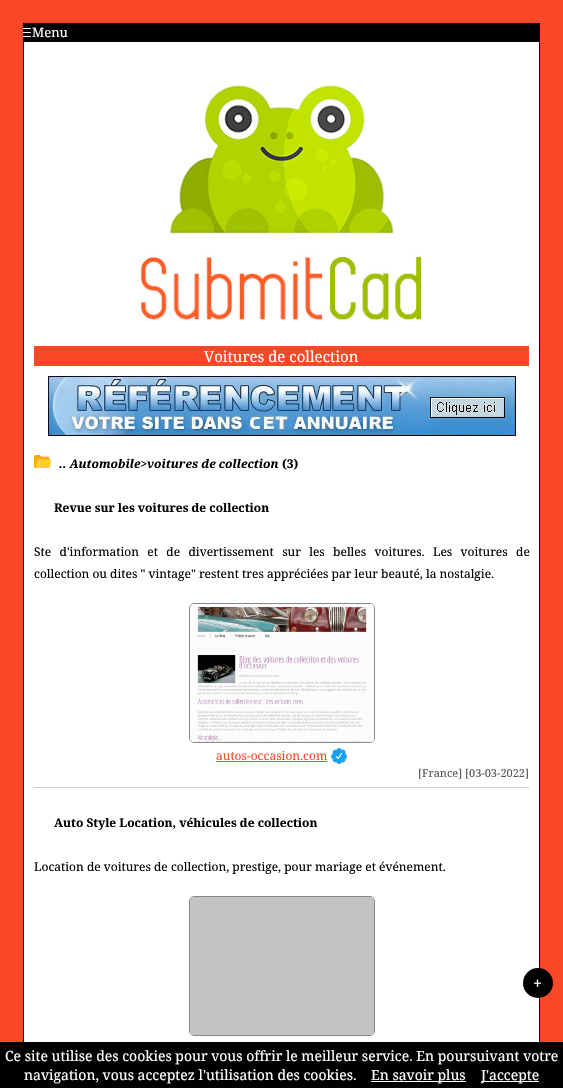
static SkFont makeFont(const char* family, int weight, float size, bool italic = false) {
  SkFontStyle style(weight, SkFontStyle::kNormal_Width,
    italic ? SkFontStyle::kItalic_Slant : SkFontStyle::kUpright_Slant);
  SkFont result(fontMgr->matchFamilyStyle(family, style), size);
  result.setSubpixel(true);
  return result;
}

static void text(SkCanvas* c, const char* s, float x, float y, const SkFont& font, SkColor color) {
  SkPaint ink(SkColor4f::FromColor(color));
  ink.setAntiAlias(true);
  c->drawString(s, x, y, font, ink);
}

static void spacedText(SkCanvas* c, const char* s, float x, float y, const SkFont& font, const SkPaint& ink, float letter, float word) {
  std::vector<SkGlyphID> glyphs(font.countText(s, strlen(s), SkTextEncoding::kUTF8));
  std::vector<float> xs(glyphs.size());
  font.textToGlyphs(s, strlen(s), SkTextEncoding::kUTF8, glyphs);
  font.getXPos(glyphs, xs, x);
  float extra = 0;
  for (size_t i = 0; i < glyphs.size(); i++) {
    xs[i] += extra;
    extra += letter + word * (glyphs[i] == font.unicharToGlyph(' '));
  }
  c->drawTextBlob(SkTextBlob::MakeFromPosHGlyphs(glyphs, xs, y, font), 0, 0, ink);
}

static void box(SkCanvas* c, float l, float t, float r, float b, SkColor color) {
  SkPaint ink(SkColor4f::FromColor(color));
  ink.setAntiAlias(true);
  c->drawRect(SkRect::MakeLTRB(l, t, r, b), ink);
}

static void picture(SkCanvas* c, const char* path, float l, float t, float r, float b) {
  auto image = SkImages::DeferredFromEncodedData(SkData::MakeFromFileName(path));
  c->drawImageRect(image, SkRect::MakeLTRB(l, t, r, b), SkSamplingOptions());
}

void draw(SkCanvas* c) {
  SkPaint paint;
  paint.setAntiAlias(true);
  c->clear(0xfff94827);
  box(c, 23, 23, 540, 41, 0xff000000);
  picture(c, "img_01.png", 23, 28, 31, 37);
  SkFont face1 = makeFont("Noto Serif", 400, 13);
  text(c, "Menu", 32, 37, face1, 0xffffffff);
  box(c, 24, 42, 539, 1042, 0xffffffff);
  paint.setStyle(SkPaint::kStroke_Style);
  paint.setStrokeWidth(1);
  paint.setColor(0xff000000);
  c->drawRect(SkRect::MakeLTRB(23.5f, 41.5f, 539.5f, 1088.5f), paint);
  picture(c, "img_02.png", 138, 85, 422, 321);
  box(c, 34, 346, 529, 366, 0xfff94827);
  SkFont face2 = makeFont("Noto Serif", 400, 15);
  text(c, "Voitures de collection", 204, 362, face2, 0xffffffff);
  picture(c, "img_03.png", 48, 376, 516, 436);
  picture(c, "img_04.png", 34, 455, 51, 468);
  SkFont face3 = makeFont("Noto Serif", 700, 12, true);
  text(c, ".. Automobile>voitures de collection", 59, 468, face3, 0xff000000);
  SkFont face4 = makeFont("Noto Serif", 700, 12);
  text(c, "(3)", 282, 468, face4, 0xff000000);
  text(c, "Revue sur les voitures de collection", 54, 512, face4, 0xff000000);
  SkFont face5 = makeFont("Noto Serif", 400, 12);
  paint.setStyle(SkPaint::kFill_Style);
  spacedText(c, "Ste d'information et de divertissement sur les belles voitures. Les voitures de", 34, 556, face5, paint, 0, 5.25f);
  text(c, "collection ou dites \" vintage\" restent tres appréciées par leur beauté, la nostalgie.", 34, 578, face5, 0xff000000);
  paint.setStyle(SkPaint::kStroke_Style);
  paint.setColor(0xff888888);
  c->drawRoundRect(SkRect::MakeLTRB(189.5f, 603.5f, 374.5f, 742.5f), 4.5f, 4.5f, paint);
  picture(c, "img_05.png", 190, 604, 374, 742);
  text(c, "autos-occasion.com", 216, 760, face5, 0xfff94827);
  box(c, 216, 761, 327, 762, 0xfff94827);
  picture(c, "img_06.png", 331, 748, 347, 764);
  SkFont face6 = makeFont("Noto Serif", 400, 11);
  text(c, "[France] [03-03-2022]", 418, 777, face6, 0xff555555);
  box(c, 34, 787, 529, 788, 0xffcccccc);
  text(c, "Auto Style Location, véhicules de collection", 54, 827, face4, 0xff000000);
  text(c, "Location de voitures de collection, prestige, pour mariage et événement.", 34, 871, face5, 0xff000000);
  c->drawRoundRect(SkRect::MakeLTRB(189.5f, 896.5f, 374.5f, 1035.5f), 4.5f, 4.5f, paint);
  box(c, 190, 897, 374, 1035, 0xffc3c3c3);
  paint.setStyle(SkPaint::kFill_Style);
  paint.setColor(0xff000000);
  c->drawCircle(538, 983, 15, paint);
  SkFont face7 = makeFont("Noto Serif", 700, 16);
  text(c, "+", 533, 989, face7, 0xffffffff);
  box(c, 0, 1042, 563, 1088, 0xff000000);
  SkFont face8 = makeFont("Noto Serif", 400, 14);
  text(c, "Ce site utilise des cookies pour vous offrir le meilleur service. En poursuivant votre", 5, 1061, face8, 0xffffffff);
  text(c, "navigation, vous acceptez l'utilisation des cookies.", 24, 1080, face8, 0xffffffff);
  box(c, 371, 1081, 466, 1082, 0xffffffff);
  text(c, "En savoir plus", 371, 1080, face8, 0xffffffff);
  box(c, 481, 1081, 539, 1082, 0xffffffff);
  text(c, "J'accepte", 481, 1080, face8, 0xffffffff);
}
